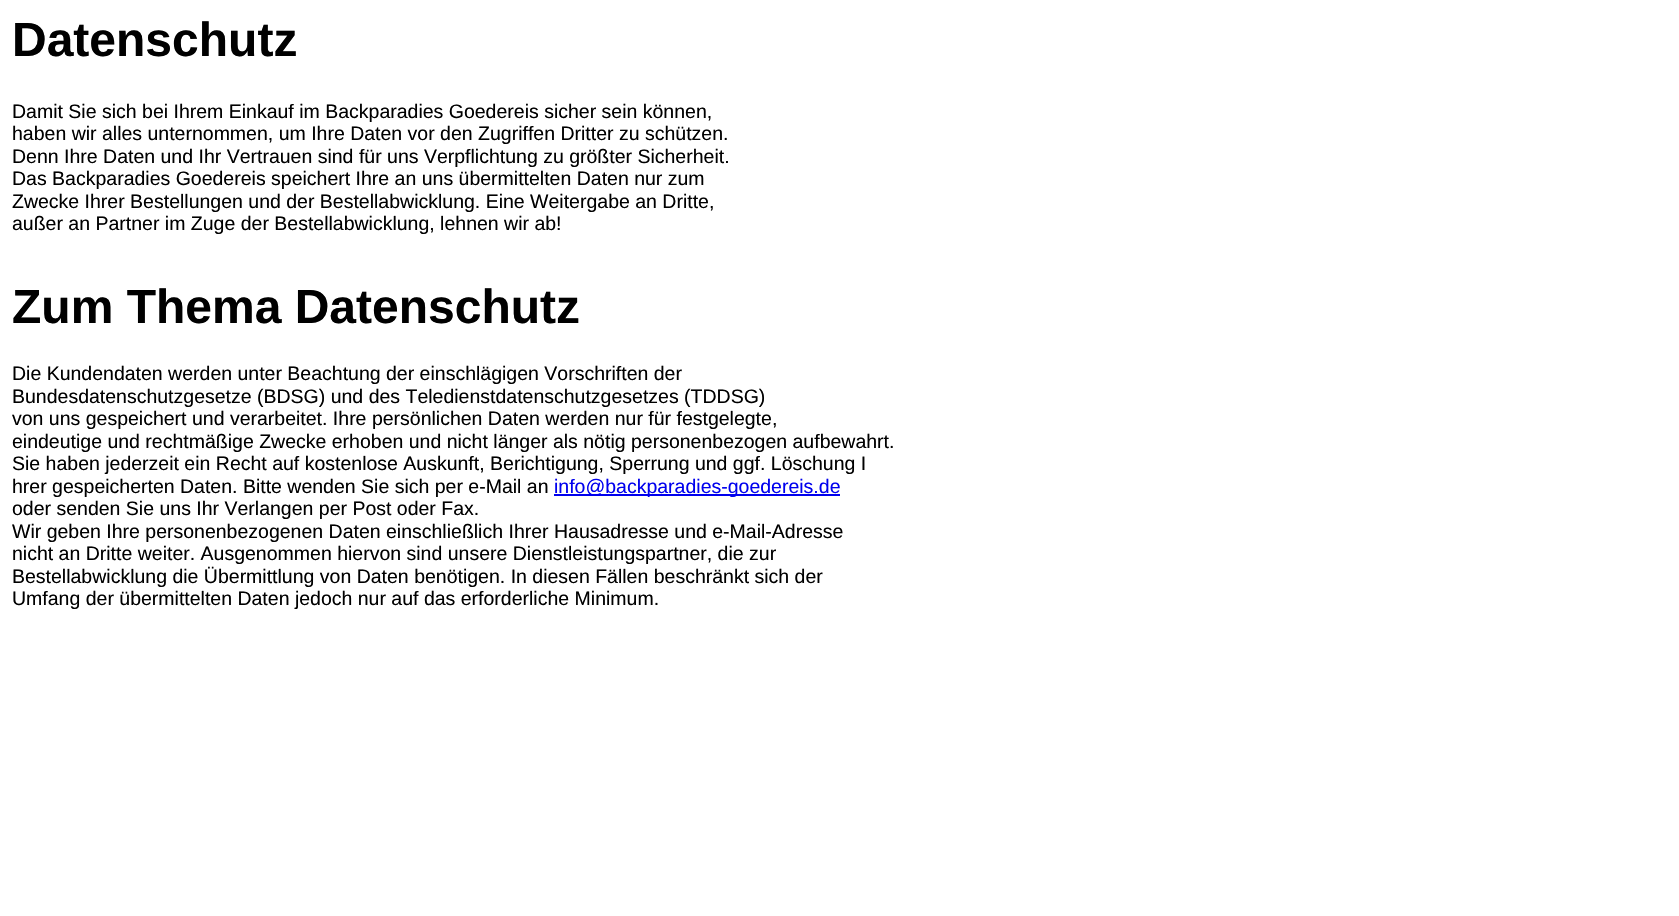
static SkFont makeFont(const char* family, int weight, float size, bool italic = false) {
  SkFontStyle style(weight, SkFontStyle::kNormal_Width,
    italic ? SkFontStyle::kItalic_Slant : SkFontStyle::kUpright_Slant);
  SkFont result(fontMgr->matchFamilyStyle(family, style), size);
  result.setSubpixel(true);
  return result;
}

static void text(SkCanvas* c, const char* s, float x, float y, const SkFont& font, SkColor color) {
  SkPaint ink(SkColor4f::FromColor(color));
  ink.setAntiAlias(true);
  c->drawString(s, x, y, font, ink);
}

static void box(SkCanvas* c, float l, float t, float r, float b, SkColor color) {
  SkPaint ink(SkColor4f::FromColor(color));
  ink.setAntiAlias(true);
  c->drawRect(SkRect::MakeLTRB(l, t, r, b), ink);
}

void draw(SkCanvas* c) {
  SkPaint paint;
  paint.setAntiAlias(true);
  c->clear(0xffffffff);
  SkFont face1 = makeFont("Liberation Sans", 700, 48);
  text(c, "Datenschutz", 12, 56, face1, 0xff000000);
  SkFont face2 = makeFont("Liberation Sans", 400, 19.5f);
  text(c, "Damit Sie sich bei Ihrem Einkauf im Backparadies Goedereis sicher sein können,", 12, 118, face2, 0xff000000);
  text(c, "haben wir alles unternommen, um Ihre Daten vor den Zugriffen Dritter zu schützen.", 12, 140, face2, 0xff000000);
  text(c, "Denn Ihre Daten und Ihr Vertrauen sind für uns Verpflichtung zu größter Sicherheit.", 12, 163, face2, 0xff000000);
  text(c, "Das Backparadies Goedereis speichert Ihre an uns übermittelten Daten nur zum", 12, 185, face2, 0xff000000);
  text(c, "Zwecke Ihrer Bestellungen und der Bestellabwicklung. Eine Weitergabe an Dritte,", 12, 208, face2, 0xff000000);
  text(c, "außer an Partner im Zuge der Bestellabwicklung, lehnen wir ab!", 12, 230, face2, 0xff000000);
  text(c, "Zum Thema Datenschutz", 12, 323, face1, 0xff000000);
  text(c, "Die Kundendaten werden unter Beachtung der einschlägigen Vorschriften der", 12, 380, face2, 0xff000000);
  text(c, "Bundesdatenschutzgesetze (BDSG) und des Teledienstdatenschutzgesetzes (TDDSG)", 12, 403, face2, 0xff000000);
  text(c, "von uns gespeichert und verarbeitet. Ihre persönlichen Daten werden nur für festgelegte,", 12, 425, face2, 0xff000000);
  text(c, "eindeutige und rechtmäßige Zwecke erhoben und nicht länger als nötig personenbezogen aufbewahrt.", 12, 448, face2, 0xff000000);
  text(c, "Sie haben jederzeit ein Recht auf kostenlose Auskunft, Berichtigung, Sperrung und ggf. Löschung I", 12, 470, face2, 0xff000000);
  text(c, "hrer gespeicherten Daten. Bitte wenden Sie sich per e-Mail an", 12, 493, face2, 0xff000000);
  box(c, 554, 494, 840, 496, 0xff0000ee);
  text(c, "info@backparadies-goedereis.de", 554, 493, face2, 0xff0000ee);
  text(c, "oder senden Sie uns Ihr Verlangen per Post oder Fax.", 12, 515, face2, 0xff000000);
  text(c, "Wir geben Ihre personenbezogenen Daten einschließlich Ihrer Hausadresse und e-Mail-Adresse", 12, 538, face2, 0xff000000);
  text(c, "nicht an Dritte weiter. Ausgenommen hiervon sind unsere Dienstleistungspartner, die zur", 12, 560, face2, 0xff000000);
  text(c, "Bestellabwicklung die Übermittlung von Daten benötigen. In diesen Fällen beschränkt sich der", 12, 583, face2, 0xff000000);
  text(c, "Umfang der übermittelten Daten jedoch nur auf das erforderliche Minimum.", 12, 605, face2, 0xff000000);
}
